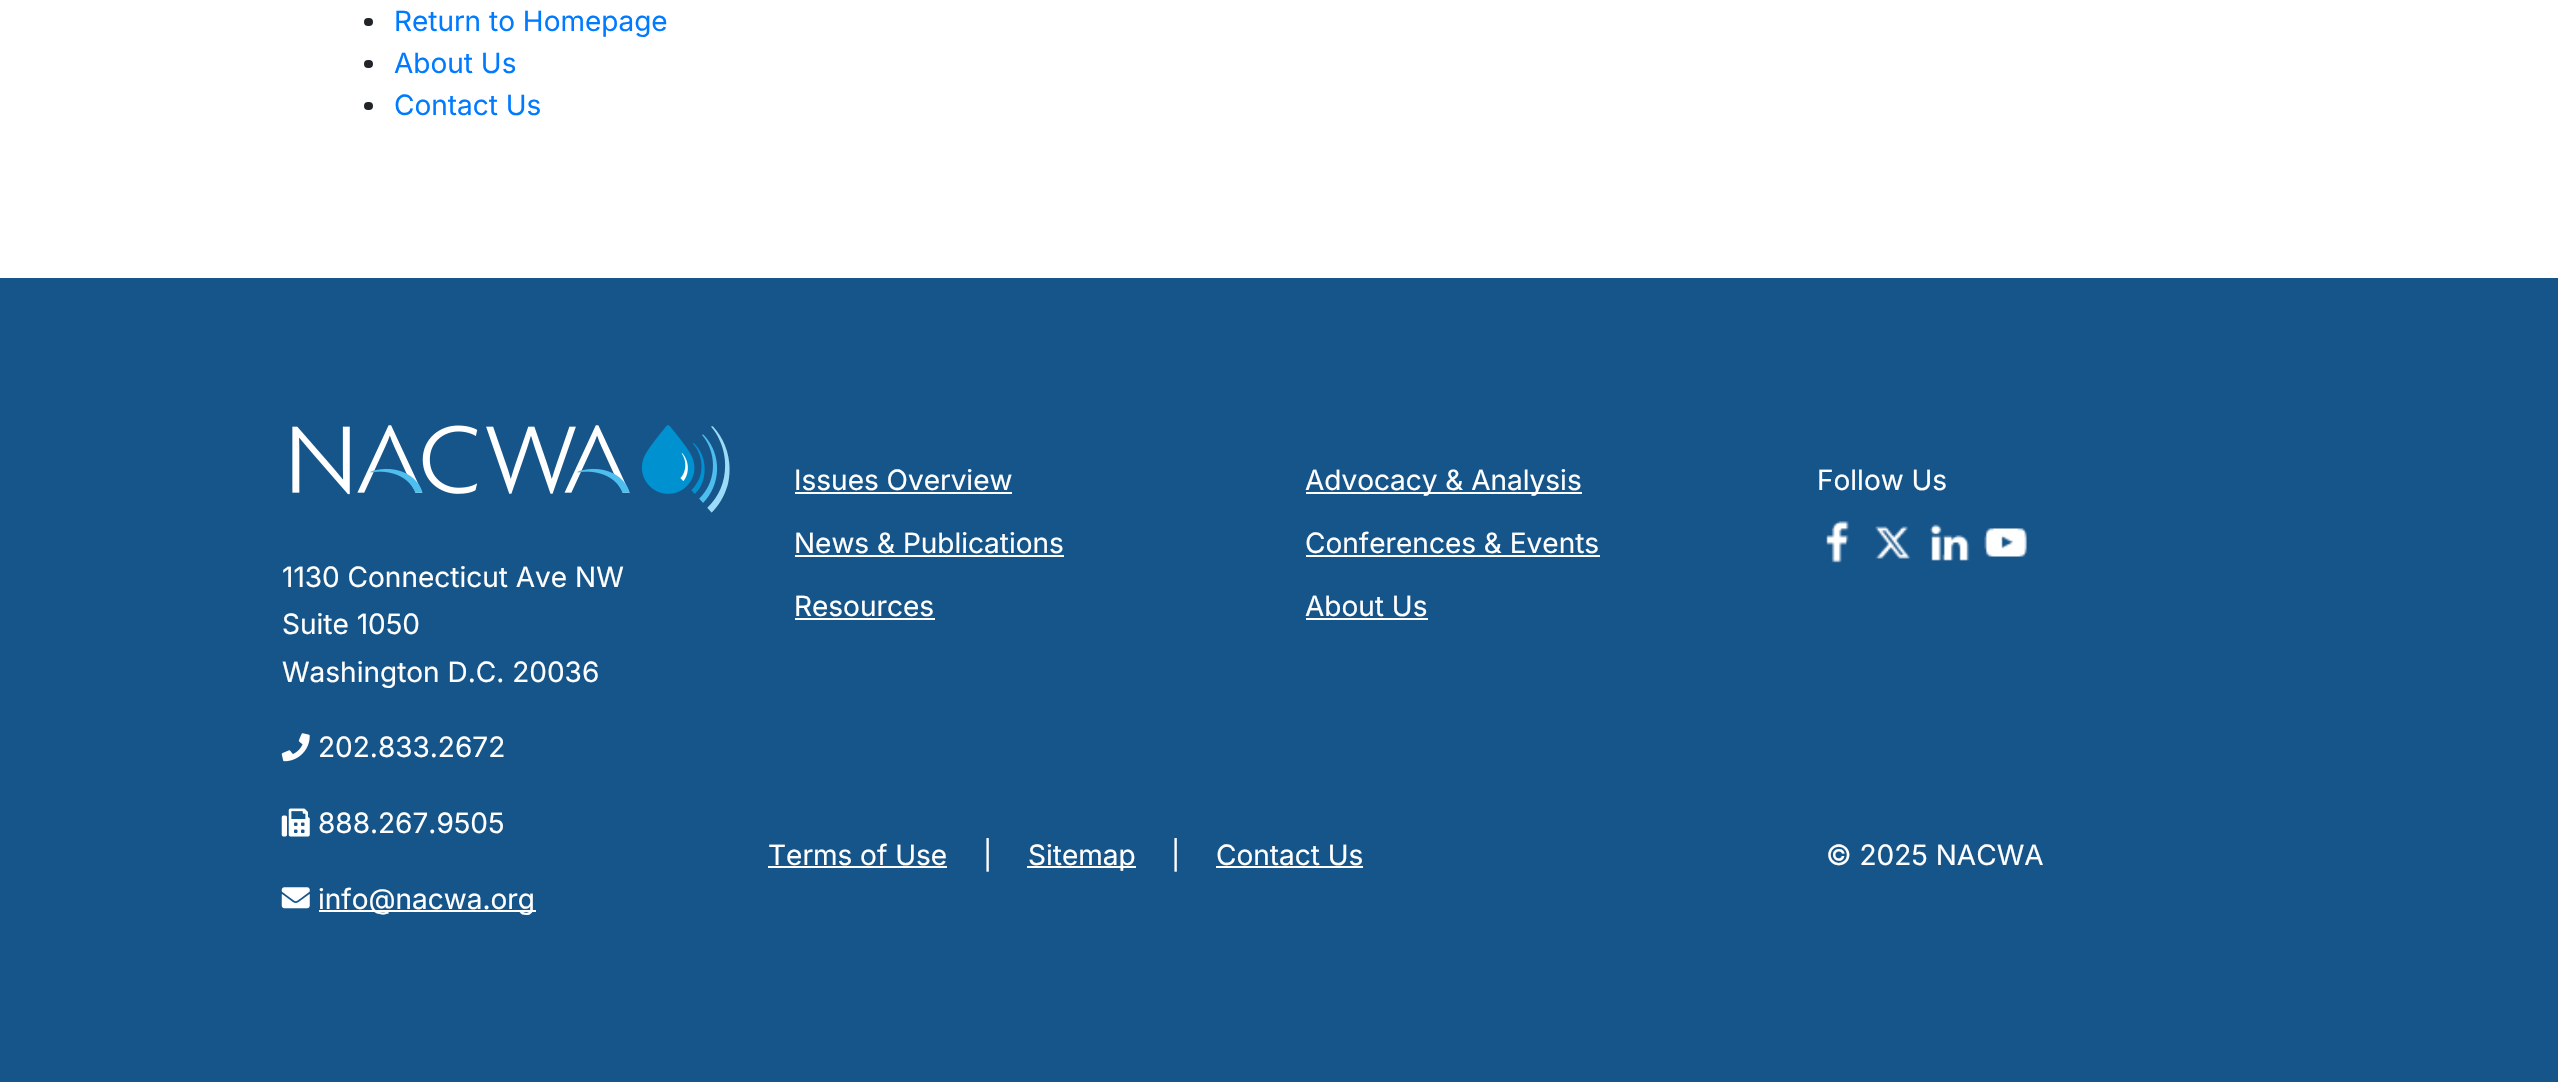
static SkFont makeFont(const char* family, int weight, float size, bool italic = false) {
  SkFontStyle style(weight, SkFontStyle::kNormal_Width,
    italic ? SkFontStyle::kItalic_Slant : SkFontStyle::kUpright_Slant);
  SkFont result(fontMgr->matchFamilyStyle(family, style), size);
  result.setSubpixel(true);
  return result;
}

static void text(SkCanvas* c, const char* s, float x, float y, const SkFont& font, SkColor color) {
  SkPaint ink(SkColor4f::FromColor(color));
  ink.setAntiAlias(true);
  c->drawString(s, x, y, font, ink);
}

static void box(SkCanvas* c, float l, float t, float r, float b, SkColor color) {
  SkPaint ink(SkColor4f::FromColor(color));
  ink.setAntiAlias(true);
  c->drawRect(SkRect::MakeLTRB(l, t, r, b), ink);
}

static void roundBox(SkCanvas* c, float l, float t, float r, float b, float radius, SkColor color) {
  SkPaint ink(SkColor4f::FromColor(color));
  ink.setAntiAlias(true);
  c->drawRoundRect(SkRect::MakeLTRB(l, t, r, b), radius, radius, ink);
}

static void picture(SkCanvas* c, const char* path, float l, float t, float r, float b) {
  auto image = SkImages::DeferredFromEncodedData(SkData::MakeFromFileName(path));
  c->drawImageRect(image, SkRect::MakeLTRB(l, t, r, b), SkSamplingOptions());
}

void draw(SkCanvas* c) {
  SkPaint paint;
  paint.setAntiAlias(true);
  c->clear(0xffffffff);
  roundBox(c, 364, 18, 373, 26, 4, 0xff212529);
  SkFont face1 = makeFont("Inter", 400, 28);
  text(c, "Return to Homepage", 394, 31, face1, 0xff007bff);
  roundBox(c, 364, 60, 373, 68, 4, 0xff212529);
  text(c, "About Us", 394, 73, face1, 0xff007bff);
  roundBox(c, 364, 102, 373, 110, 4, 0xff212529);
  text(c, "Contact Us", 394, 115, face1, 0xff007bff);
  box(c, 0, 278, 2558, 1082, 0xff16558a);
  picture(c, "img_01.png", 292, 425, 730, 513);
  text(c, "1130 Connecticut Ave NW", 282, 587, face1, 0xffffffff);
  text(c, "Suite 1050", 282, 634, face1, 0xffffffff);
  text(c, "Washington D.C. 20036", 282, 682, face1, 0xffffffff);
  picture(c, "img_02.png", 281, 733, 310, 762);
  text(c, "202.833.2672", 318, 757, face1, 0xffffffff);
  picture(c, "img_03.png", 281, 808, 310, 837);
  text(c, "888.267.9505", 318, 833, face1, 0xffffffff);
  picture(c, "img_04.png", 281, 887, 310, 909);
  box(c, 319, 910, 536, 912, 0xffffffff);
  text(c, "info@nacwa.org", 318, 909, face1, 0xffffffff);
  text(c, "Issues Overview", 794, 490, face1, 0xffffffff);
  box(c, 795, 492, 1012, 494, 0xffffffff);
  text(c, "News & Publications", 794, 553, face1, 0xffffffff);
  box(c, 795, 555, 1064, 557, 0xffffffff);
  text(c, "Resources", 794, 616, face1, 0xffffffff);
  box(c, 795, 618, 935, 620, 0xffffffff);
  box(c, 1306, 492, 1582, 494, 0xffffffff);
  text(c, "Advocacy & Analysis", 1305, 490, face1, 0xffffffff);
  text(c, "Conferences & Events", 1305, 553, face1, 0xffffffff);
  box(c, 1306, 555, 1600, 557, 0xffffffff);
  text(c, "About Us", 1305, 616, face1, 0xffffffff);
  box(c, 1306, 618, 1428, 620, 0xffffffff);
  text(c, "Follow Us", 1817, 490, face1, 0xffffffff);
  picture(c, "img_05.png", 1826, 521, 1849, 563);
  picture(c, "img_06.png", 1875, 526, 1910, 559);
  picture(c, "img_07.png", 1930, 524, 1970, 561);
  picture(c, "img_08.png", 1984, 528, 2027, 557);
  text(c, "Terms of Use", 768, 865, face1, 0xffffffff);
  box(c, 768, 866, 947, 868, 0xffffffff);
  text(c, "|", 983, 865, face1, 0xffffffff);
  box(c, 1027, 866, 1136, 868, 0xffffffff);
  text(c, "Sitemap", 1028, 865, face1, 0xffffffff);
  text(c, "|", 1171, 865, face1, 0xffffffff);
  text(c, "Contact Us", 1216, 865, face1, 0xffffffff);
  box(c, 1216, 866, 1363, 868, 0xffffffff);
  text(c, "© 2025 NACWA", 1826, 865, face1, 0xffffffff);
}
